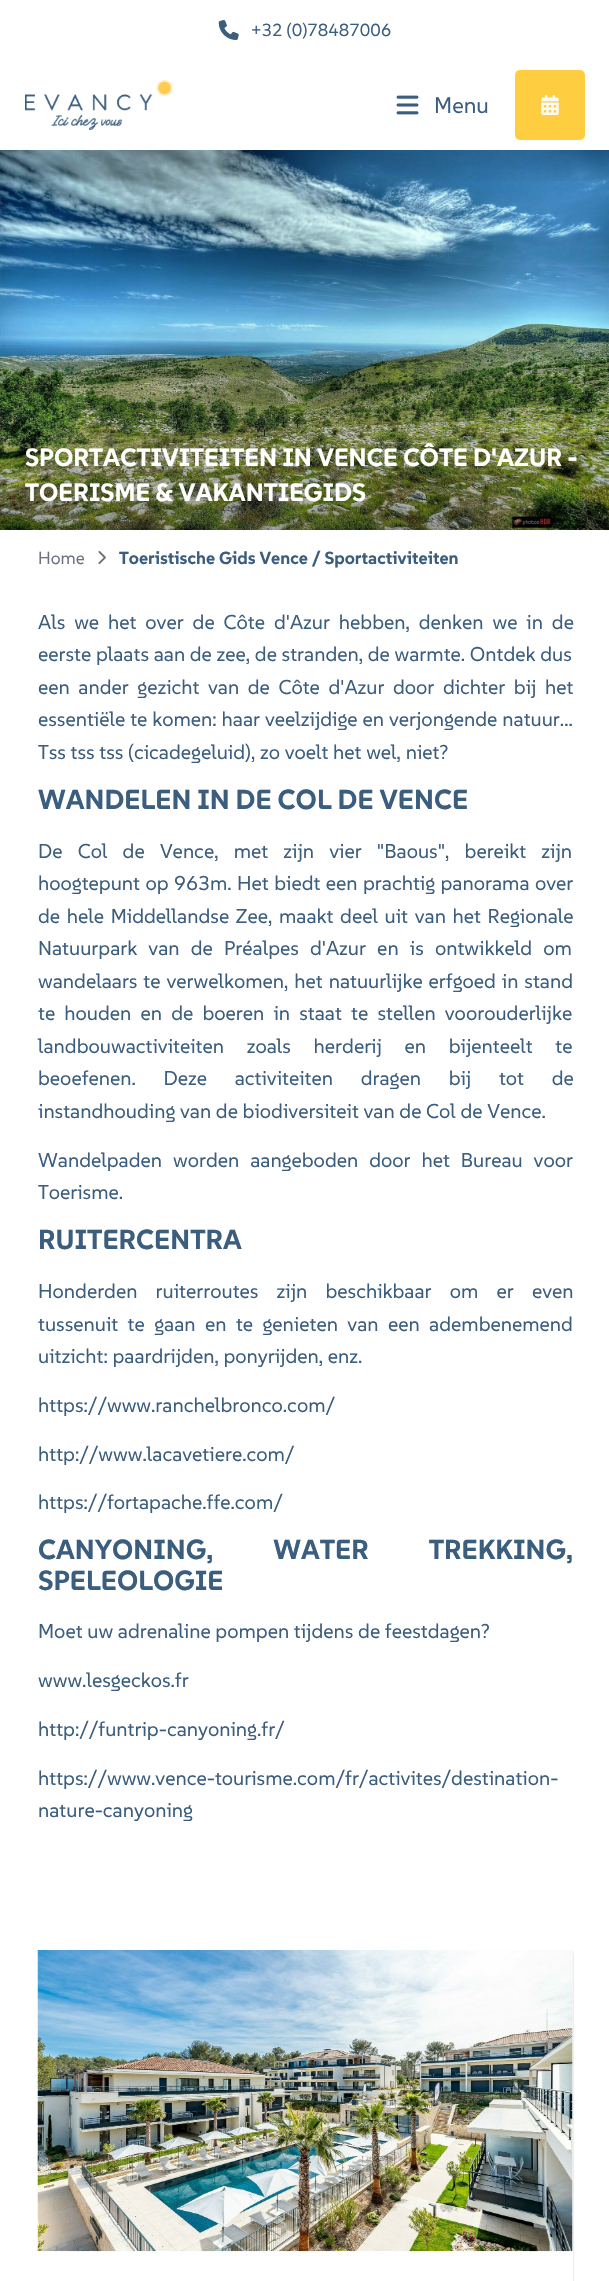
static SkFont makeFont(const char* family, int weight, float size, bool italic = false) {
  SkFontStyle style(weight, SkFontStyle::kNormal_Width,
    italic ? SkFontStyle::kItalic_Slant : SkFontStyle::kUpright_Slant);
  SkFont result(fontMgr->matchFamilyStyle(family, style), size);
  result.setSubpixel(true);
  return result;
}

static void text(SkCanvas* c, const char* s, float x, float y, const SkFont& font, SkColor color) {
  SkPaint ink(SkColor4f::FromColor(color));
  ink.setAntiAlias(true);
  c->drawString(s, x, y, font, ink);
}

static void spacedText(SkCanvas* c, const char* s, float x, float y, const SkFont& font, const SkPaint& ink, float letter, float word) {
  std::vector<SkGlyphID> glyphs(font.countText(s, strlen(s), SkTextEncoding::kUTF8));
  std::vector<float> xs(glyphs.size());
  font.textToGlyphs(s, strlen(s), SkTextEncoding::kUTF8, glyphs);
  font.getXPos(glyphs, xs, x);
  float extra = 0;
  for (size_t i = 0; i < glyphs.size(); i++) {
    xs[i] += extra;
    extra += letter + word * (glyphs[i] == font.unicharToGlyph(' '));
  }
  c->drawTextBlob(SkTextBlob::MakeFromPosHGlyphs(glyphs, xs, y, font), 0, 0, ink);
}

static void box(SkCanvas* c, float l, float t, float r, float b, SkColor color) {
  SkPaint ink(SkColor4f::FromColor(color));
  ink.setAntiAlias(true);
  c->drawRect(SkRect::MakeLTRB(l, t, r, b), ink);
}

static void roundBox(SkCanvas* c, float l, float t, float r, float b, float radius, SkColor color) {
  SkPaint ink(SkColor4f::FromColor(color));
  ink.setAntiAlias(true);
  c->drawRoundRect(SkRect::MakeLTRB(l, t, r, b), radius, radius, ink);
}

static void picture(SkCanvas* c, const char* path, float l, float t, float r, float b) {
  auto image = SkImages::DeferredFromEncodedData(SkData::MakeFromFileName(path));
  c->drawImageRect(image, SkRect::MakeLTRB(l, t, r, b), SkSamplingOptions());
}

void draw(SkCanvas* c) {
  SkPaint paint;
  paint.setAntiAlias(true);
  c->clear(0xffffffff);
  picture(c, "img_01.png", 218, 20, 239, 40);
  SkFont face1 = makeFont("SUSE", 400, 17.5f);
  text(c, "+32 (0)78487006", 251, 36, face1, 0xff3b5d7e);
  picture(c, "img_05.png", 0, 150, 609, 530);
  c->save();
  c->clipRect(SkRect::MakeLTRB(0, 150, 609, 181));
  paint.setColor(0x26000000);
  paint.setMaskFilter(SkMaskFilter::MakeBlur(kNormal_SkBlurStyle, 10));
  c->drawRect(SkRect::MakeLTRB(0, 80, 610, 170), paint);
  paint.setMaskFilter(nullptr);
  c->restore();
  picture(c, "img_02.png", 25, 80, 173, 130);
  picture(c, "img_03.png", 396, 95, 419, 115);
  SkFont face2 = makeFont("SUSE", 400, 22.5f);
  text(c, "Menu", 434, 113, face2, 0xff3b5d7e);
  roundBox(c, 515, 70, 585, 140, 5, 0xffffcd40);
  picture(c, "img_04.png", 541, 95, 559, 115);
  SkFont face3 = makeFont("SUSE", 700, 25);
  text(c, "SPORTACTIVITEITEN IN VENCE CÔTE D'AZUR -", 25, 466, face3, 0xffffffff);
  text(c, "TOERISME & VAKANTIEGIDS", 25, 501, face3, 0xffffffff);
  text(c, "Home", 38, 564, face1, 0xff6b7280);
  picture(c, "img_06.png", 98, 551, 106, 564);
  SkFont face4 = makeFont("SUSE", 700, 17.5f);
  text(c, "Toeristische Gids Vence / Sportactiviteiten", 119, 564, face4, 0xff3b5d7e);
  SkFont face5 = makeFont("SUSE", 400, 20);
  paint.setColor(0xff3b5d7e);
  spacedText(c, "Als we het over de Côte d'Azur hebben, denken we in de", 38, 629, face5, paint, 0, 4.25f);
  text(c, "eerste plaats aan de zee, de stranden, de warmte. Ontdek dus", 38, 661, face5, 0xff3b5d7e);
  spacedText(c, "een ander gezicht van de Côte d'Azur door dichter bij het", 38, 694, face5, paint, 0, 3.9f);
  spacedText(c, "essentiële te komen: haar veelzijdige en verjongende natuur...", 38, 726, face5, paint, 0, 0.25f);
  text(c, "Tss tss tss (cicadegeluid), zo voelt het wel, niet?", 38, 759, face5, 0xff3b5d7e);
  SkFont face6 = makeFont("SUSE", 700, 27.5f);
  text(c, "WANDELEN IN DE COL DE VENCE", 38, 809, face6, 0xff3b5d7e);
  spacedText(c, "De Col de Vence, met zijn vier \"Baous\", bereikt zijn", 38, 858, face5, paint, 0, 10.5f);
  spacedText(c, "hoogtepunt op 963m. Het biedt een prachtig panorama over", 38, 890, face5, paint, 0, 0.75f);
  spacedText(c, "de hele Middellandse Zee, maakt deel uit van het Regionale", 38, 923, face5, paint, 0, 2);
  spacedText(c, "Natuurpark van de Préalpes d'Azur en is ontwikkeld om", 38, 955, face5, paint, 0, 6.5f);
  spacedText(c, "wandelaars te verwelkomen, het natuurlijke erfgoed in stand", 38, 988, face5, paint, 0, 1.25f);
  spacedText(c, "te houden en de boeren in staat te stellen voorouderlijke", 38, 1020, face5, paint, 0, 4.5f);
  spacedText(c, "landbouwactiviteiten zoals herderij en bijenteelt te", 38, 1053, face5, paint, 0, 18);
  spacedText(c, "beoefenen. Deze activiteiten dragen bij tot de", 38, 1085, face5, paint, 0, 23);
  text(c, "instandhouding van de biodiversiteit van de Col de Vence.", 38, 1118, face5, 0xff3b5d7e);
  spacedText(c, "Wandelpaden worden aangeboden door het Bureau voor", 38, 1167, face5, paint, 0, 6.25f);
  text(c, "Toerisme.", 38, 1199, face5, 0xff3b5d7e);
  text(c, "RUITERCENTRA", 38, 1249, face6, 0xff3b5d7e);
  spacedText(c, "Honderden ruiterroutes zijn beschikbaar om er even", 38, 1298, face5, paint, 0, 13.5f);
  spacedText(c, "tussenuit te gaan en te genieten van een adembenemend", 38, 1331, face5, paint, 0, 4.75f);
  text(c, "uitzicht: paardrijden, ponyrijden, enz.", 38, 1363, face5, 0xff3b5d7e);
  text(c, "https://www.ranchelbronco.com/", 38, 1412, face5, 0xff3b5d7e);
  text(c, "http://www.lacavetiere.com/", 38, 1461, face5, 0xff3b5d7e);
  text(c, "https://fortapache.ffe.com/", 38, 1509, face5, 0xff3b5d7e);
  spacedText(c, "CANYONING, WATER TREKKING,", 38, 1559, face6, paint, 0, 54);
  text(c, "SPELEOLOGIE", 38, 1590, face6, 0xff3b5d7e);
  text(c, "Moet uw adrenaline pompen tijdens de feestdagen?", 38, 1638, face5, 0xff3b5d7e);
  text(c, "www.lesgeckos.fr", 38, 1687, face5, 0xff3b5d7e);
  text(c, "http://funtrip-canyoning.fr/", 38, 1736, face5, 0xff3b5d7e);
  text(c, "https://www.vence-tourisme.com/fr/activites/destination-", 38, 1785, face5, 0xff3b5d7e);
  text(c, "nature-canyoning", 38, 1817, face5, 0xff3b5d7e);
  paint.setColor(0xffeeeeee);
  c->drawPath(SkPathBuilder().moveTo(39, 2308).lineTo(39, 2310).lineTo(574, 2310).lineTo(574, 1953).lineTo(572, 1953).lineTo(572, 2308).close().detach(), paint);
  box(c, 572, 2251, 573, 2281, 0xffffffff);
  box(c, 572, 1950, 573, 2251, 0xfff4f4f4);
  picture(c, "img_07.png", 37, 1950, 573, 2252);
}
